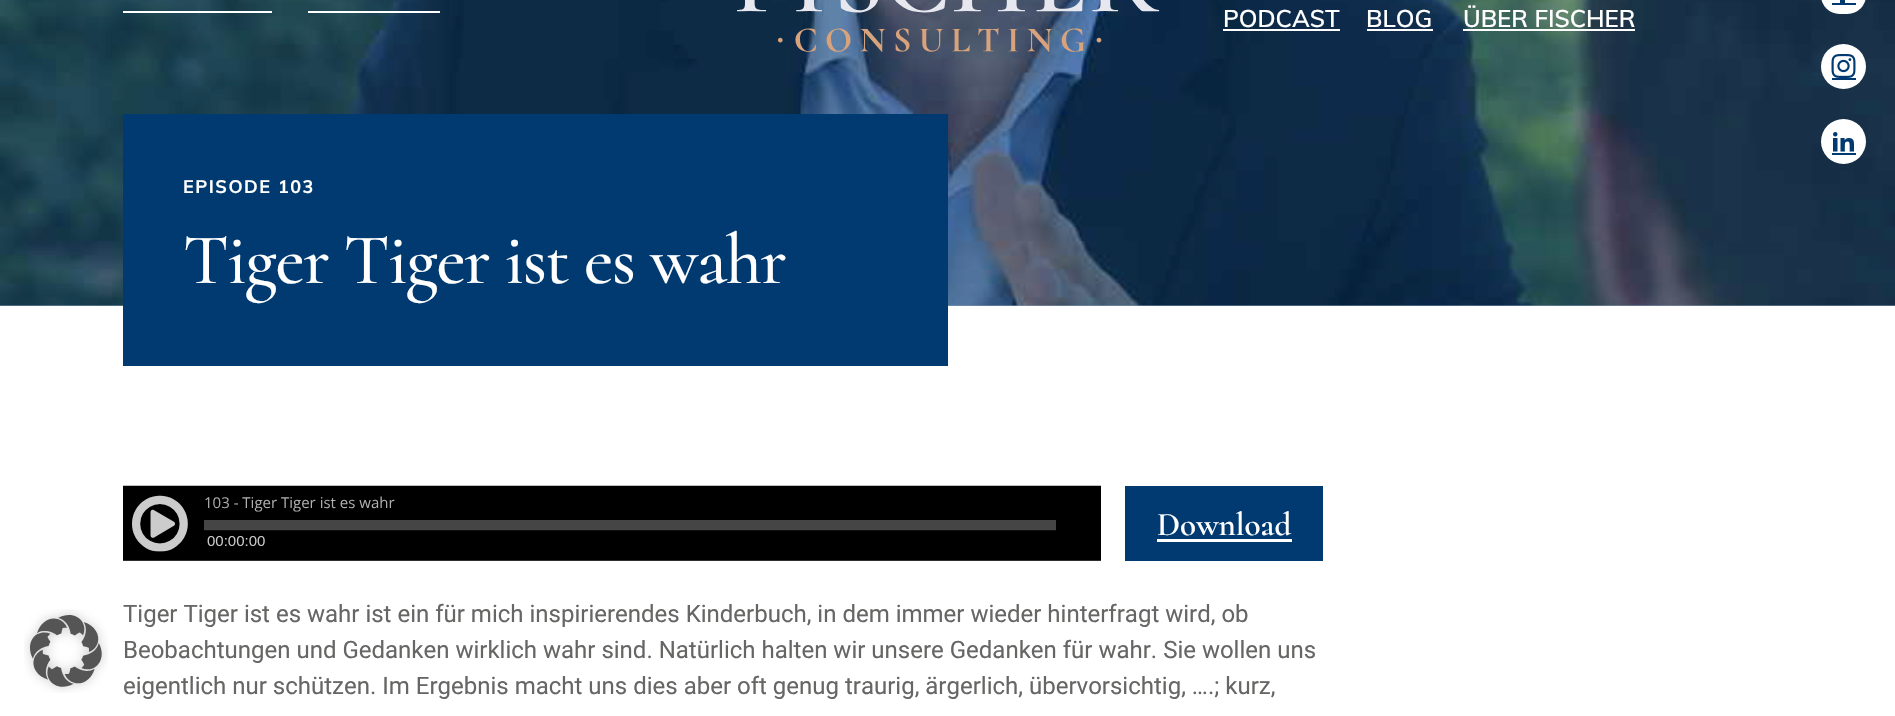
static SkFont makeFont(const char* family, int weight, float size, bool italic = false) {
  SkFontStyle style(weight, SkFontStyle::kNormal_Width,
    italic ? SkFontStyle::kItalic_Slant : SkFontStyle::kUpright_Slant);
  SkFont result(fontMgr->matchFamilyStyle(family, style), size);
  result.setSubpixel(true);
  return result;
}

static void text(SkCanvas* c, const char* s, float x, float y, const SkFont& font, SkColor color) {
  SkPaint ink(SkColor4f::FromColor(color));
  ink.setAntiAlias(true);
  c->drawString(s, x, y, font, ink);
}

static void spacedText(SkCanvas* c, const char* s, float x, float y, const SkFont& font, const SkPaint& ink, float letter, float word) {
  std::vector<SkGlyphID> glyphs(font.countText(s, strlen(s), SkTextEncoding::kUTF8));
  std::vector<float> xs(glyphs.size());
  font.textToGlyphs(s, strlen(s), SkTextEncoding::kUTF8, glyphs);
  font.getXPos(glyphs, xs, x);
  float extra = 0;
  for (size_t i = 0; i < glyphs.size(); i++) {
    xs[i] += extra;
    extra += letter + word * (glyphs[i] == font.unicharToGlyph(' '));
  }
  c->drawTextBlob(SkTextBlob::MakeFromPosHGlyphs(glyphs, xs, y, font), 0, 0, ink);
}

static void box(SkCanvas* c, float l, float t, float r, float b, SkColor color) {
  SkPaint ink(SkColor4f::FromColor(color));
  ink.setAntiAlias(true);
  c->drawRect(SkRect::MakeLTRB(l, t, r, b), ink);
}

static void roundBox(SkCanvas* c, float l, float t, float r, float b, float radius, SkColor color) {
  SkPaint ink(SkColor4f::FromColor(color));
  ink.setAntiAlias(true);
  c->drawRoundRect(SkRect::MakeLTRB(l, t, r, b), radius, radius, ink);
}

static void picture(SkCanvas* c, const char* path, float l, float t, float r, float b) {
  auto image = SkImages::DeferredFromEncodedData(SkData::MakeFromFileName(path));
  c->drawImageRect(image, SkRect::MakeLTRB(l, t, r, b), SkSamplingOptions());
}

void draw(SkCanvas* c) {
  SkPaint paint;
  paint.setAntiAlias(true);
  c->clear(0xffffffff);
  box(c, 0, 305, 1895, 306, 0xff809db8);
  picture(c, "img_05.png", 0, 0, 1895, 306);
  box(c, 123, 11, 272, 13, 0xffffffff);
  box(c, 308, 11, 440, 13, 0xffffffff);
  picture(c, "img_01.png", 737, 0, 1160, 52);
  SkFont face1 = makeFont("Muli", 600, 24);
  text(c, "PODCAST", 1223, 27, face1, 0xffffffff);
  box(c, 1223, 29, 1340, 31, 0xffffffff);
  text(c, "BLOG", 1366, 27, face1, 0xffffffff);
  box(c, 1367, 29, 1433, 31, 0xffffffff);
  text(c, "ÜBER FISCHER", 1463, 27, face1, 0xffffffff);
  box(c, 1463, 29, 1635, 31, 0xffffffff);
  picture(c, "img_02.png", 24, 609, 108, 693);
  roundBox(c, 1821, -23, 1866, 14, 22.5f, 0xffffffff);
  box(c, 1840, 0, 1845, 3, 0xff003a70);
  box(c, 1832, 3, 1856, 5, 0xff003a70);
  paint.setColor(0xffffffff);
  c->drawCircle(1843.5f, 66.5f, 22.5f, paint);
  picture(c, "img_03.png", 1831, 54, 1856, 78);
  box(c, 1832, 78, 1856, 80, 0xff003a70);
  c->drawCircle(1843.5f, 141.5f, 22.5f, paint);
  picture(c, "img_04.png", 1833, 132, 1854, 152);
  box(c, 1832, 153, 1856, 155, 0xff003a70);
  box(c, 123, 114, 948, 366, 0xff003a70);
  SkFont face2 = makeFont("Muli", 700, 18);
  spacedText(c, "EPISODE 103", 183, 193, face2, paint, 1.5f, 0);
  SkFont face3 = makeFont("Cormorant", 500, 72);
  spacedText(c, "Tiger Tiger ist es wahr", 183, 283, face3, paint, -1.5f, 0);
  box(c, 123, 560, 1101, 561, 0xff000000);
  picture(c, "img_06.png", 123, 485, 1101, 561);
  box(c, 1125, 486, 1323, 561, 0xff003a70);
  SkFont face4 = makeFont("Cormorant", 600, 33);
  text(c, "Download", 1157, 535, face4, 0xffffffff);
  box(c, 1157, 539, 1292, 542, 0xffffffff);
  SkFont face5 = makeFont("Roboto", 400, 24);
  text(c, "Tiger Tiger ist es wahr ist ein für mich inspirierendes Kinderbuch, in dem immer wieder hinterfragt wird, ob", 123, 622, face5, 0xff666665);
  text(c, "Beobachtungen und Gedanken wirklich wahr sind. Natürlich halten wir unsere Gedanken für wahr. Sie wollen uns", 123, 658, face5, 0xff666665);
  text(c, "eigentlich nur schützen. Im Ergebnis macht uns dies aber oft genug traurig, ärgerlich, übervorsichtig, ….; kurz,", 123, 694, face5, 0xff666665);
}
